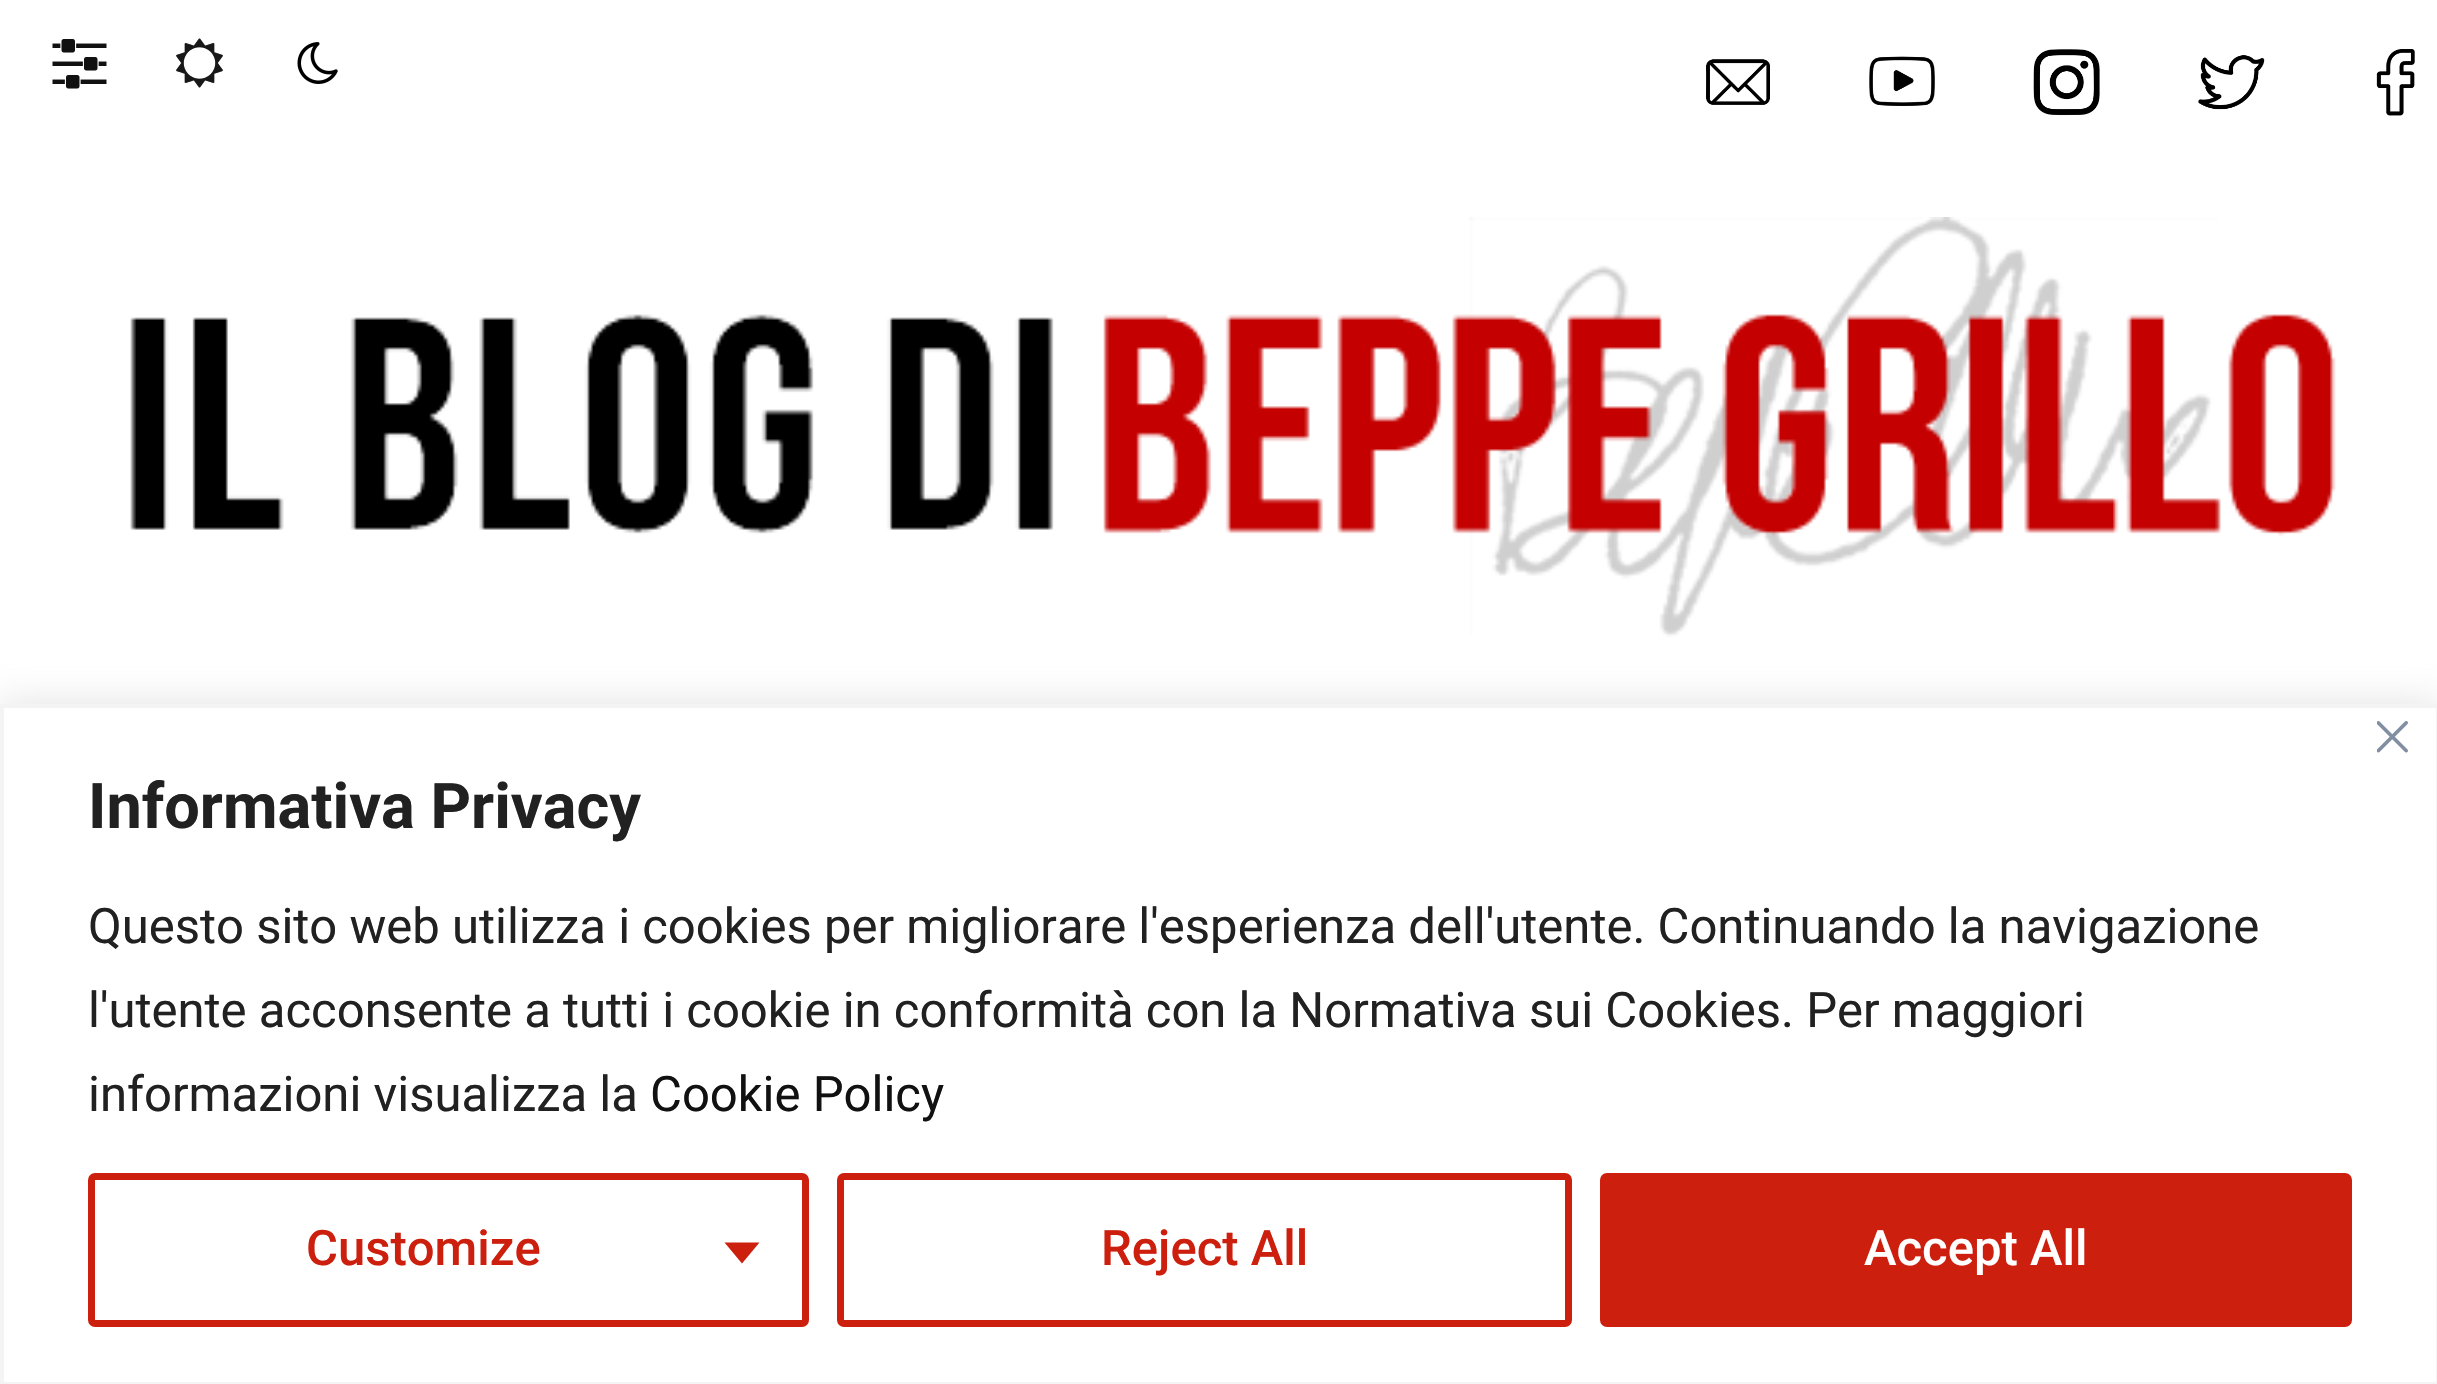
static SkFont makeFont(const char* family, int weight, float size, bool italic = false) {
  SkFontStyle style(weight, SkFontStyle::kNormal_Width,
    italic ? SkFontStyle::kItalic_Slant : SkFontStyle::kUpright_Slant);
  SkFont result(fontMgr->matchFamilyStyle(family, style), size);
  result.setSubpixel(true);
  return result;
}

static void text(SkCanvas* c, const char* s, float x, float y, const SkFont& font, SkColor color) {
  SkPaint ink(SkColor4f::FromColor(color));
  ink.setAntiAlias(true);
  c->drawString(s, x, y, font, ink);
}

static void picture(SkCanvas* c, const char* path, float l, float t, float r, float b) {
  auto image = SkImages::DeferredFromEncodedData(SkData::MakeFromFileName(path));
  c->drawImageRect(image, SkRect::MakeLTRB(l, t, r, b), SkSamplingOptions());
}

void draw(SkCanvas* c) {
  SkPaint paint;
  paint.setAntiAlias(true);
  c->clear(0xffffffff);
  picture(c, "img_01.png", 52, 39, 107, 89);
  picture(c, "img_02.png", 176, 38, 223, 88);
  picture(c, "img_03.png", 297, 42, 338, 84);
  picture(c, "img_04.png", 176, 38, 223, 88);
  picture(c, "img_05.png", 1706, 59, 1770, 105);
  picture(c, "img_06.png", 1869, 56, 1935, 106);
  picture(c, "img_07.png", 2033, 49, 2100, 116);
  picture(c, "img_08.png", 2198, 55, 2265, 110);
  picture(c, "img_09.png", 2376, 49, 2415, 116);
  picture(c, "img_10.png", 130, 217, 2336, 637);
  paint.setColor(0x4dacabab);
  paint.setMaskFilter(SkMaskFilter::MakeBlur(kNormal_SkBlurStyle, 17.5f));
  c->drawRect(SkRect::MakeLTRB(0, 700, 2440, 1383), paint);
  paint.setMaskFilter(nullptr);
  paint.setColor(0xffffffff);
  c->drawRect(SkRect::MakeLTRB(2, 706, 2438, 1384), paint);
  paint.setStyle(SkPaint::kStroke_Style);
  paint.setStrokeWidth(4);
  paint.setColor(0xfff4f4f4);
  c->drawRect(SkRect::MakeLTRB(2, 706, 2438, 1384), paint);
  picture(c, "img_11.png", 2377, 721, 2408, 753);
  SkFont face1 = makeFont("Roboto", 700, 63);
  text(c, "Informativa Privacy", 88, 828, face1, 0xff212121);
  SkFont face2 = makeFont("Roboto", 400, 49);
  text(c, "Questo sito web utilizza i cookies per migliorare l'esperienza dell'utente. Continuando la navigazione", 88, 943, face2, 0xff212121);
  text(c, "l'utente acconsente a tutti i cookie in conformità con la Normativa sui Cookies. Per maggiori", 88, 1027, face2, 0xff212121);
  text(c, "informazioni visualizza la", 88, 1111, face2, 0xff212121);
  text(c, "Cookie Policy", 650, 1111, face2, 0xff111111);
  paint.setStrokeWidth(7);
  paint.setColor(0xffcc1f0e);
  c->drawRoundRect(SkRect::MakeLTRB(91.5f, 1176.5f, 805.5f, 1323.5f), 3.5f, 3.5f, paint);
  SkFont face3 = makeFont("Roboto", 500, 49);
  text(c, "Customize", 306, 1265, face3, 0xffcc1f0e);
  paint.setStyle(SkPaint::kFill_Style);
  c->drawPath(SkPathBuilder().moveTo(724.5f, 1242.5f).lineTo(759.5f, 1242.5f).lineTo(742, 1263.5f).close().detach(), paint);
  paint.setStyle(SkPaint::kStroke_Style);
  c->drawRoundRect(SkRect::MakeLTRB(840.5f, 1176.5f, 1568.5f, 1323.5f), 3.5f, 3.5f, paint);
  text(c, "Reject All", 1101, 1265, face3, 0xffcc1f0e);
  paint.setStyle(SkPaint::kFill_Style);
  c->drawRoundRect(SkRect::MakeLTRB(1603.5f, 1176.5f, 2348.5f, 1323.5f), 3.5f, 3.5f, paint);
  paint.setStyle(SkPaint::kStroke_Style);
  c->drawRoundRect(SkRect::MakeLTRB(1603.5f, 1176.5f, 2348.5f, 1323.5f), 3.5f, 3.5f, paint);
  text(c, "Accept All", 1864, 1265, face3, 0xffffffff);
}
